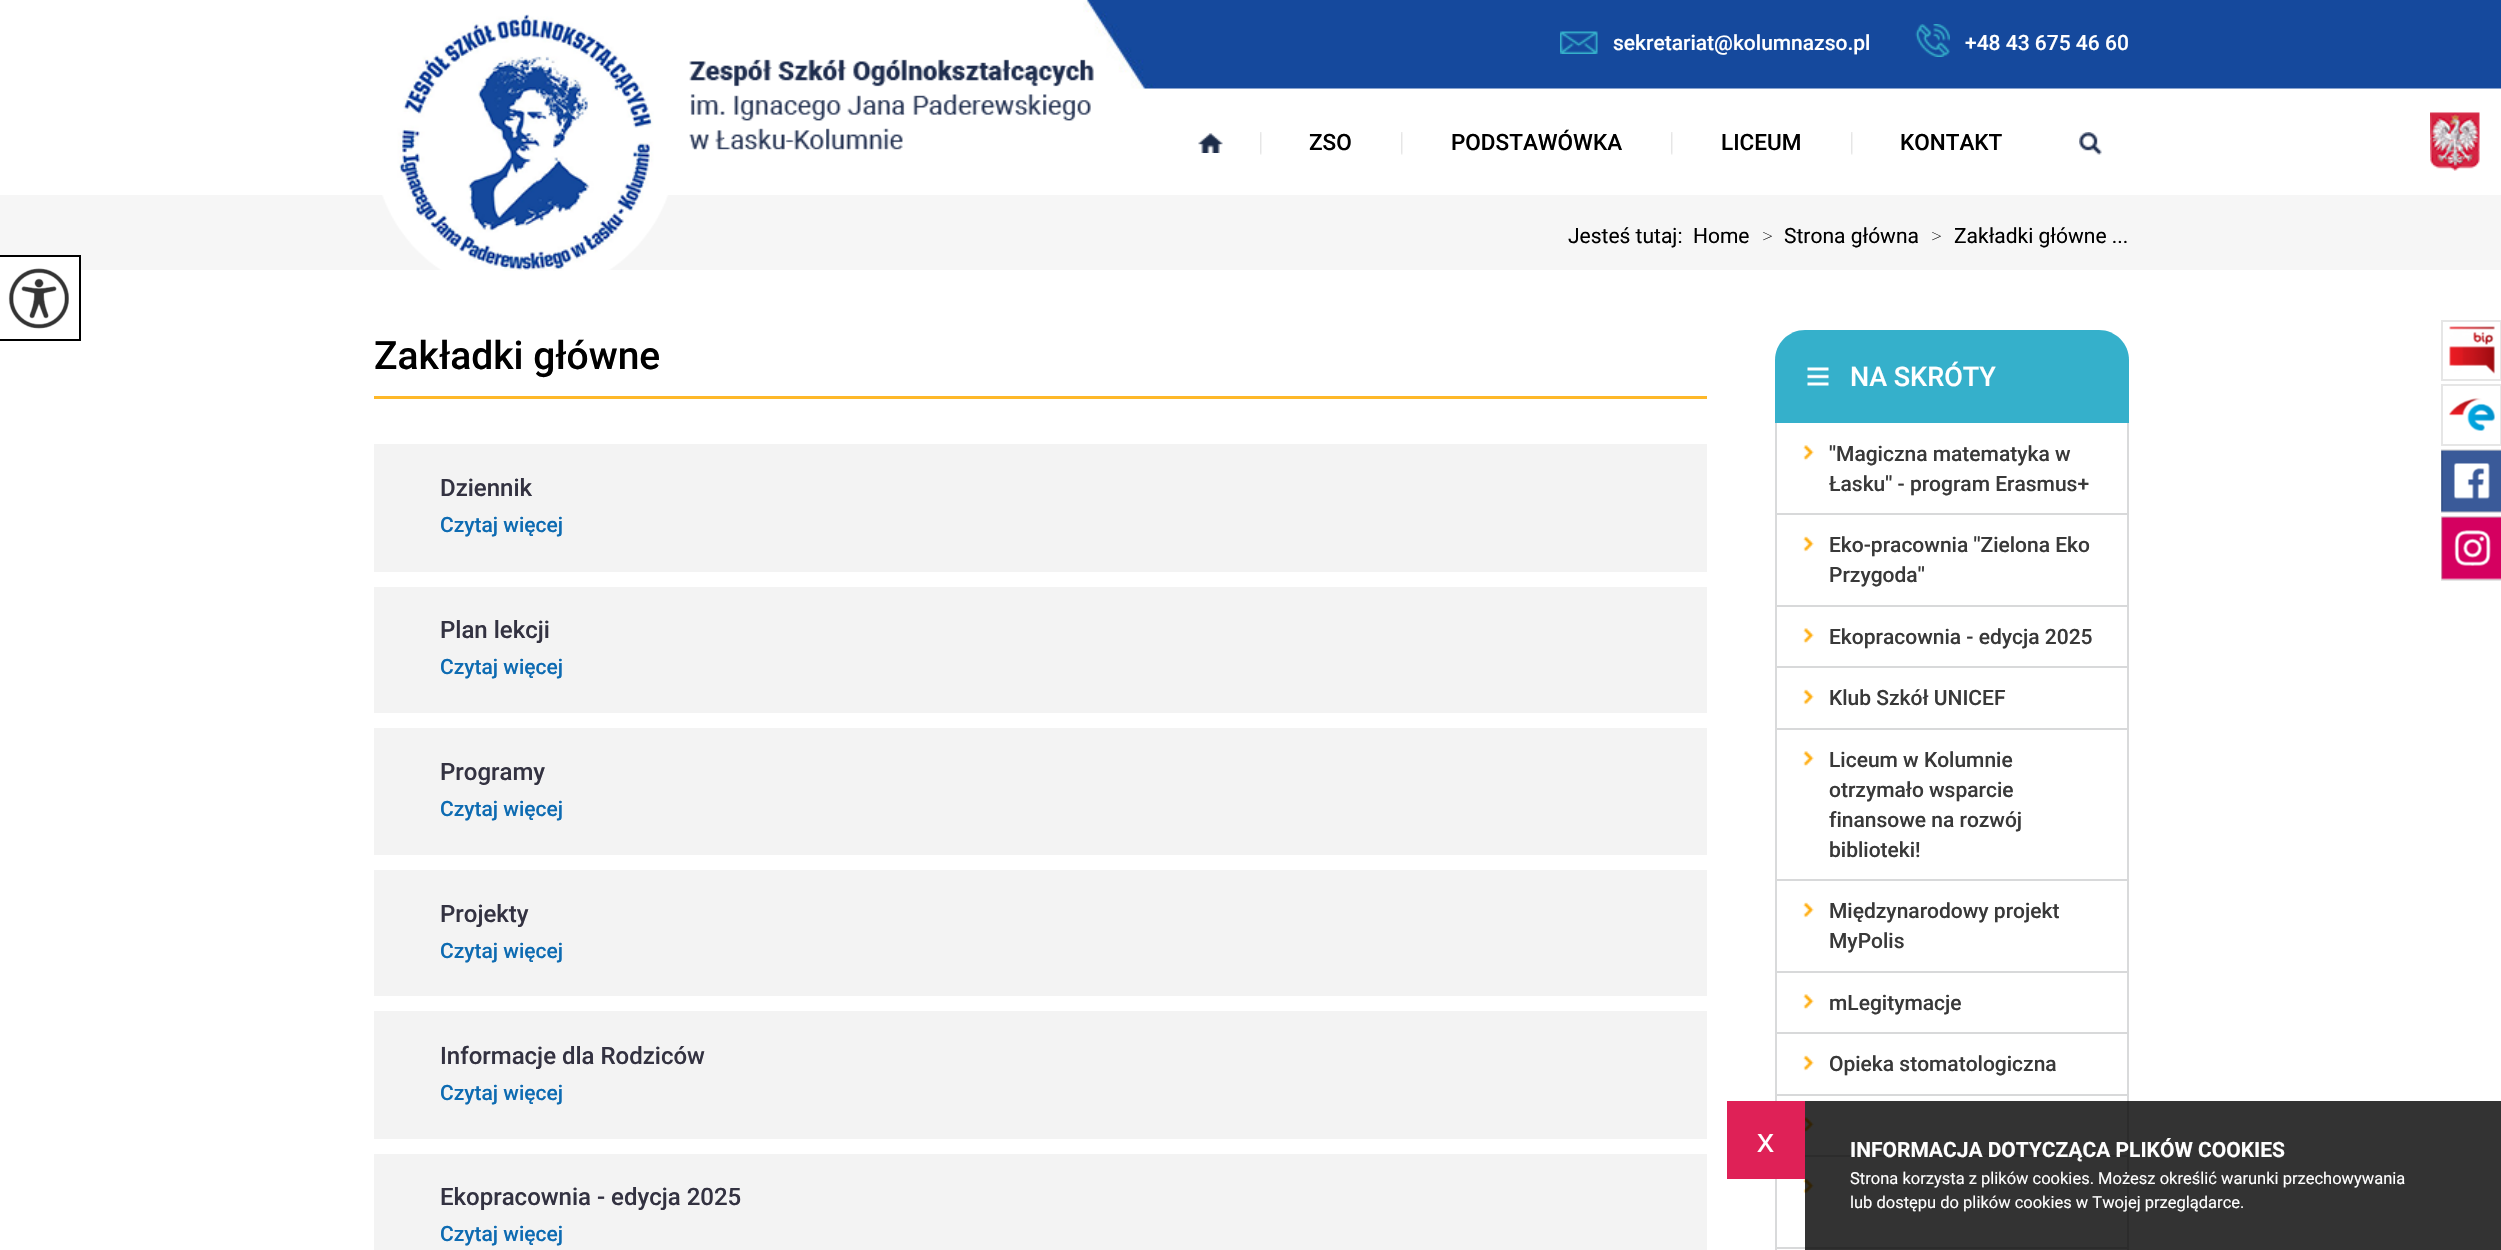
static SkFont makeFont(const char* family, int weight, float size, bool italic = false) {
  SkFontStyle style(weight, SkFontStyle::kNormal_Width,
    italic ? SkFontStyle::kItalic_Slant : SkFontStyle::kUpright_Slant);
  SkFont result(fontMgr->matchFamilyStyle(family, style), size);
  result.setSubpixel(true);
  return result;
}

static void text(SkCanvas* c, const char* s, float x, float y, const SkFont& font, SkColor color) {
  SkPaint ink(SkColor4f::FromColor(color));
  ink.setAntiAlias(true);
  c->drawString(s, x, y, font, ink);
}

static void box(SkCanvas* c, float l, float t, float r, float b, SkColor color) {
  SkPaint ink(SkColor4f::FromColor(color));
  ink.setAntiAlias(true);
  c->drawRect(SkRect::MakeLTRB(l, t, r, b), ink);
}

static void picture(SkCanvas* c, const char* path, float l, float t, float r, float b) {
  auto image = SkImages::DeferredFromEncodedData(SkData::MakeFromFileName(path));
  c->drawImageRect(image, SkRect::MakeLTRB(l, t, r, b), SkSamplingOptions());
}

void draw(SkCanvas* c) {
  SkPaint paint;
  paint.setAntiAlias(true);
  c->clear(0xffffffff);
  picture(c, "img_01.png", 1083, 0, 2501, 89);
  box(c, 0, 195, 2501, 270, 0xfff6f6f6);
  picture(c, "img_02.png", 382, 14, 1094, 271);
  picture(c, "img_03.png", 1560, 31, 1598, 54);
  SkFont face1 = makeFont("Roboto", 500, 21);
  text(c, "sekretariat@kolumnazso.pl", 1613, 50, face1, 0xffffffff);
  picture(c, "img_04.png", 1915, 24, 1950, 57);
  text(c, "+48 43 675 46 60", 1965, 50, face1, 0xffffffff);
  picture(c, "img_05.png", 1198, 133, 1223, 153);
  picture(c, "img_06.png", 1260, 132, 1262, 155);
  SkFont face2 = makeFont("Roboto", 500, 22.5f);
  text(c, "ZSO", 1309, 150, face2, 0xff000000);
  picture(c, "img_06.png", 1401, 132, 1403, 155);
  text(c, "PODSTAWÓWKA", 1451, 150, face2, 0xff000000);
  picture(c, "img_06.png", 1671, 132, 1673, 155);
  text(c, "LICEUM", 1721, 150, face2, 0xff000000);
  picture(c, "img_06.png", 1851, 132, 1853, 155);
  text(c, "KONTAKT", 1900, 150, face2, 0xff000000);
  picture(c, "img_07.png", 2079, 132, 2102, 155);
  picture(c, "img_08.png", 2430, 112, 2480, 171);
  SkFont face3 = makeFont("Roboto", 400, 21);
  text(c, "Jesteś tutaj:", 1568, 243, face3, 0xff000000);
  text(c, "Home", 1693, 243, face3, 0xff000000);
  SkFont face4 = makeFont("Roboto", 100, 21);
  text(c, ">", 1762, 243, face4, 0xff000000);
  text(c, "Strona główna", 1784, 243, face3, 0xff000000);
  text(c, ">", 1931, 243, face4, 0xff000000);
  text(c, "Zakładki główne ...", 1954, 243, face3, 0xff000000);
  box(c, 0, 257, 79, 270, 0xffffffff);
  paint.setStyle(SkPaint::kStroke_Style);
  paint.setStrokeWidth(2);
  paint.setColor(0xff000000);
  c->drawRect(SkRect::MakeLTRB(-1, 256, 80, 340), paint);
  picture(c, "img_09.png", 8, 268, 69, 329);
  box(c, 374, 396, 1707, 399, 0xfffeb829);
  SkFont face5 = makeFont("Roboto", 500, 39);
  text(c, "Zakładki główne", 374, 369, face5, 0xff000000);
  box(c, 374, 444, 1707, 572, 0xfff3f3f3);
  SkFont face6 = makeFont("Roboto", 500, 24);
  text(c, "Dziennik", 440, 496, face6, 0xff333241);
  text(c, "Czytaj więcej", 440, 532, face1, 0xff0d6bb2);
  box(c, 374, 587, 1707, 713, 0xfff3f3f3);
  text(c, "Plan lekcji", 440, 638, face6, 0xff333241);
  text(c, "Czytaj więcej", 440, 674, face1, 0xff0d6bb2);
  box(c, 374, 728, 1707, 855, 0xfff3f3f3);
  text(c, "Programy", 440, 780, face6, 0xff333241);
  text(c, "Czytaj więcej", 440, 816, face1, 0xff0d6bb2);
  box(c, 374, 870, 1707, 996, 0xfff3f3f3);
  text(c, "Projekty", 440, 922, face6, 0xff333241);
  text(c, "Czytaj więcej", 440, 958, face1, 0xff0d6bb2);
  box(c, 374, 1011, 1707, 1139, 0xfff3f3f3);
  text(c, "Informacje dla Rodziców", 440, 1064, face6, 0xff333241);
  text(c, "Czytaj więcej", 440, 1100, face1, 0xff0d6bb2);
  box(c, 374, 1154, 1707, 1250, 0xfff3f3f3);
  text(c, "Ekopracownia - edycja 2025", 440, 1205, face6, 0xff333241);
  text(c, "Czytaj więcej", 440, 1241, face1, 0xff0d6bb2);
  paint.setStyle(SkPaint::kFill_Style);
  paint.setColor(0xff35b0cb);
  c->drawPath(SkPathBuilder().moveTo(1805, 330).lineTo(2099, 330).cubicTo(2115.5f, 330, 2129, 343.5f, 2129, 360).lineTo(2129, 423).lineTo(1775, 423).lineTo(1775, 360).cubicTo(1775, 343.5f, 1788.5f, 330, 1805, 330).close().detach(), paint);
  picture(c, "img_10.png", 1807, 367, 1829, 386);
  SkFont face7 = makeFont("Roboto", 500, 27);
  text(c, "NA SKRÓTY", 1850, 386, face7, 0xffffffff);
  picture(c, "img_11.png", 1803, 445, 1814, 461);
  box(c, 2127, 423, 2129, 606, 0xffd9dadb);
  box(c, 1775, 513, 2129, 515, 0xffd8d9da);
  box(c, 1775, 423, 1777, 515, 0xffd9dadb);
  text(c, "''Magiczna matematyka w", 1829, 461, face1, 0xff393939);
  text(c, "Łasku'' - program Erasmus+", 1829, 491, face1, 0xff393939);
  picture(c, "img_12.png", 1803, 536, 1814, 552);
  box(c, 1775, 605, 2129, 607, 0xffd8d9da);
  box(c, 1775, 515, 1777, 606, 0xffd9dadb);
  text(c, "Eko-pracownia ''Zielona Eko", 1829, 552, face1, 0xff393939);
  text(c, "Przygoda''", 1829, 582, face1, 0xff393939);
  picture(c, "img_11.png", 1803, 628, 1814, 644);
  box(c, 2127, 606, 2129, 729, 0xffd9dadb);
  box(c, 1775, 666, 2129, 668, 0xffd8d9da);
  box(c, 1775, 606, 1777, 668, 0xffd9dadb);
  text(c, "Ekopracownia - edycja 2025", 1829, 644, face1, 0xff393939);
  picture(c, "img_12.png", 1803, 689, 1814, 705);
  box(c, 1775, 728, 2129, 730, 0xffd8d9da);
  box(c, 1775, 668, 1777, 729, 0xffd9dadb);
  text(c, "Klub Szkół UNICEF", 1829, 705, face1, 0xff393939);
  picture(c, "img_11.png", 1803, 751, 1814, 767);
  box(c, 2127, 729, 2129, 972, 0xffd9dadb);
  box(c, 1775, 879, 2129, 881, 0xffd8d9da);
  box(c, 1775, 729, 1777, 881, 0xffd9dadb);
  text(c, "Liceum w Kolumnie", 1829, 767, face1, 0xff393939);
  text(c, "otrzymało wsparcie", 1829, 797, face1, 0xff393939);
  text(c, "finansowe na rozwój", 1829, 827, face1, 0xff393939);
  text(c, "biblioteki!", 1829, 857, face1, 0xff393939);
  picture(c, "img_12.png", 1803, 902, 1814, 918);
  box(c, 1775, 971, 2129, 973, 0xffd8d9da);
  box(c, 1775, 881, 1777, 972, 0xffd9dadb);
  text(c, "Międzynarodowy projekt", 1829, 918, face1, 0xff393939);
  text(c, "MyPolis", 1829, 948, face1, 0xff393939);
  picture(c, "img_11.png", 1803, 994, 1814, 1010);
  box(c, 2127, 972, 2129, 1095, 0xffd9dadb);
  box(c, 1775, 1032, 2129, 1034, 0xffd8d9da);
  box(c, 1775, 972, 1777, 1034, 0xffd9dadb);
  text(c, "mLegitymacje", 1829, 1010, face1, 0xff393939);
  picture(c, "img_12.png", 1803, 1055, 1814, 1071);
  box(c, 1775, 1094, 2129, 1096, 0xffd8d9da);
  box(c, 1775, 1034, 1777, 1101, 0xffd9dadb);
  text(c, "Opieka stomatologiczna", 1829, 1071, face1, 0xff393939);
  picture(c, "img_13.png", 1805, 1117, 1814, 1133);
  box(c, 2127, 1095, 2129, 1248, 0xffd9dadb);
  box(c, 1805, 1155, 2129, 1157, 0xffd8d9da);
  picture(c, "img_12.png", 1803, 1178, 1814, 1194);
  box(c, 1775, 1247, 2129, 1249, 0xffd8d9da);
  box(c, 1775, 1179, 1777, 1248, 0xffd9dadb);
  box(c, 2127, 1249, 2129, 1250, 0xffd9dadb);
  box(c, 1775, 1249, 1777, 1250, 0xffd9dadb);
  paint.setStyle(SkPaint::kStroke_Style);
  paint.setColor(0xffe6e6e6);
  c->drawRect(SkRect::MakeLTRB(2442, 321, 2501, 380), paint);
  picture(c, "img_14.png", 2449, 326, 2495, 374);
  c->drawRect(SkRect::MakeLTRB(2442, 385, 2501, 445), paint);
  picture(c, "img_15.png", 2449, 398, 2495, 431);
  picture(c, "img_16.png", 2441, 450, 2501, 513);
  paint.setColor(0x1a000000);
  c->drawRect(SkRect::MakeLTRB(2442, 450, 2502, 512), paint);
  picture(c, "img_17.png", 2441, 516, 2501, 580);
  c->drawRect(SkRect::MakeLTRB(2442, 517, 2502, 580), paint);
  box(c, 1805, 1101, 2501, 1250, 0xcc000000);
  box(c, 1727, 1101, 1805, 1179, 0xffdf2157);
  SkFont face8 = makeFont("Liberation Sans", 400, 34);
  text(c, "x", 1757, 1152, face8, 0xffffffff);
  SkFont face9 = makeFont("Roboto", 700, 21);
  text(c, "INFORMACJA DOTYCZĄCA PLIKÓW COOKIES", 1850, 1157, face9, 0xffffffff);
  SkFont face10 = makeFont("Roboto", 400, 16.5f);
  text(c, "Strona korzysta z plików cookies. Możesz określić warunki przechowywania", 1850, 1184, face10, 0xffffffff);
  text(c, "lub dostępu do plików cookies w Twojej przeglądarce.", 1850, 1208, face10, 0xffffffff);
}
